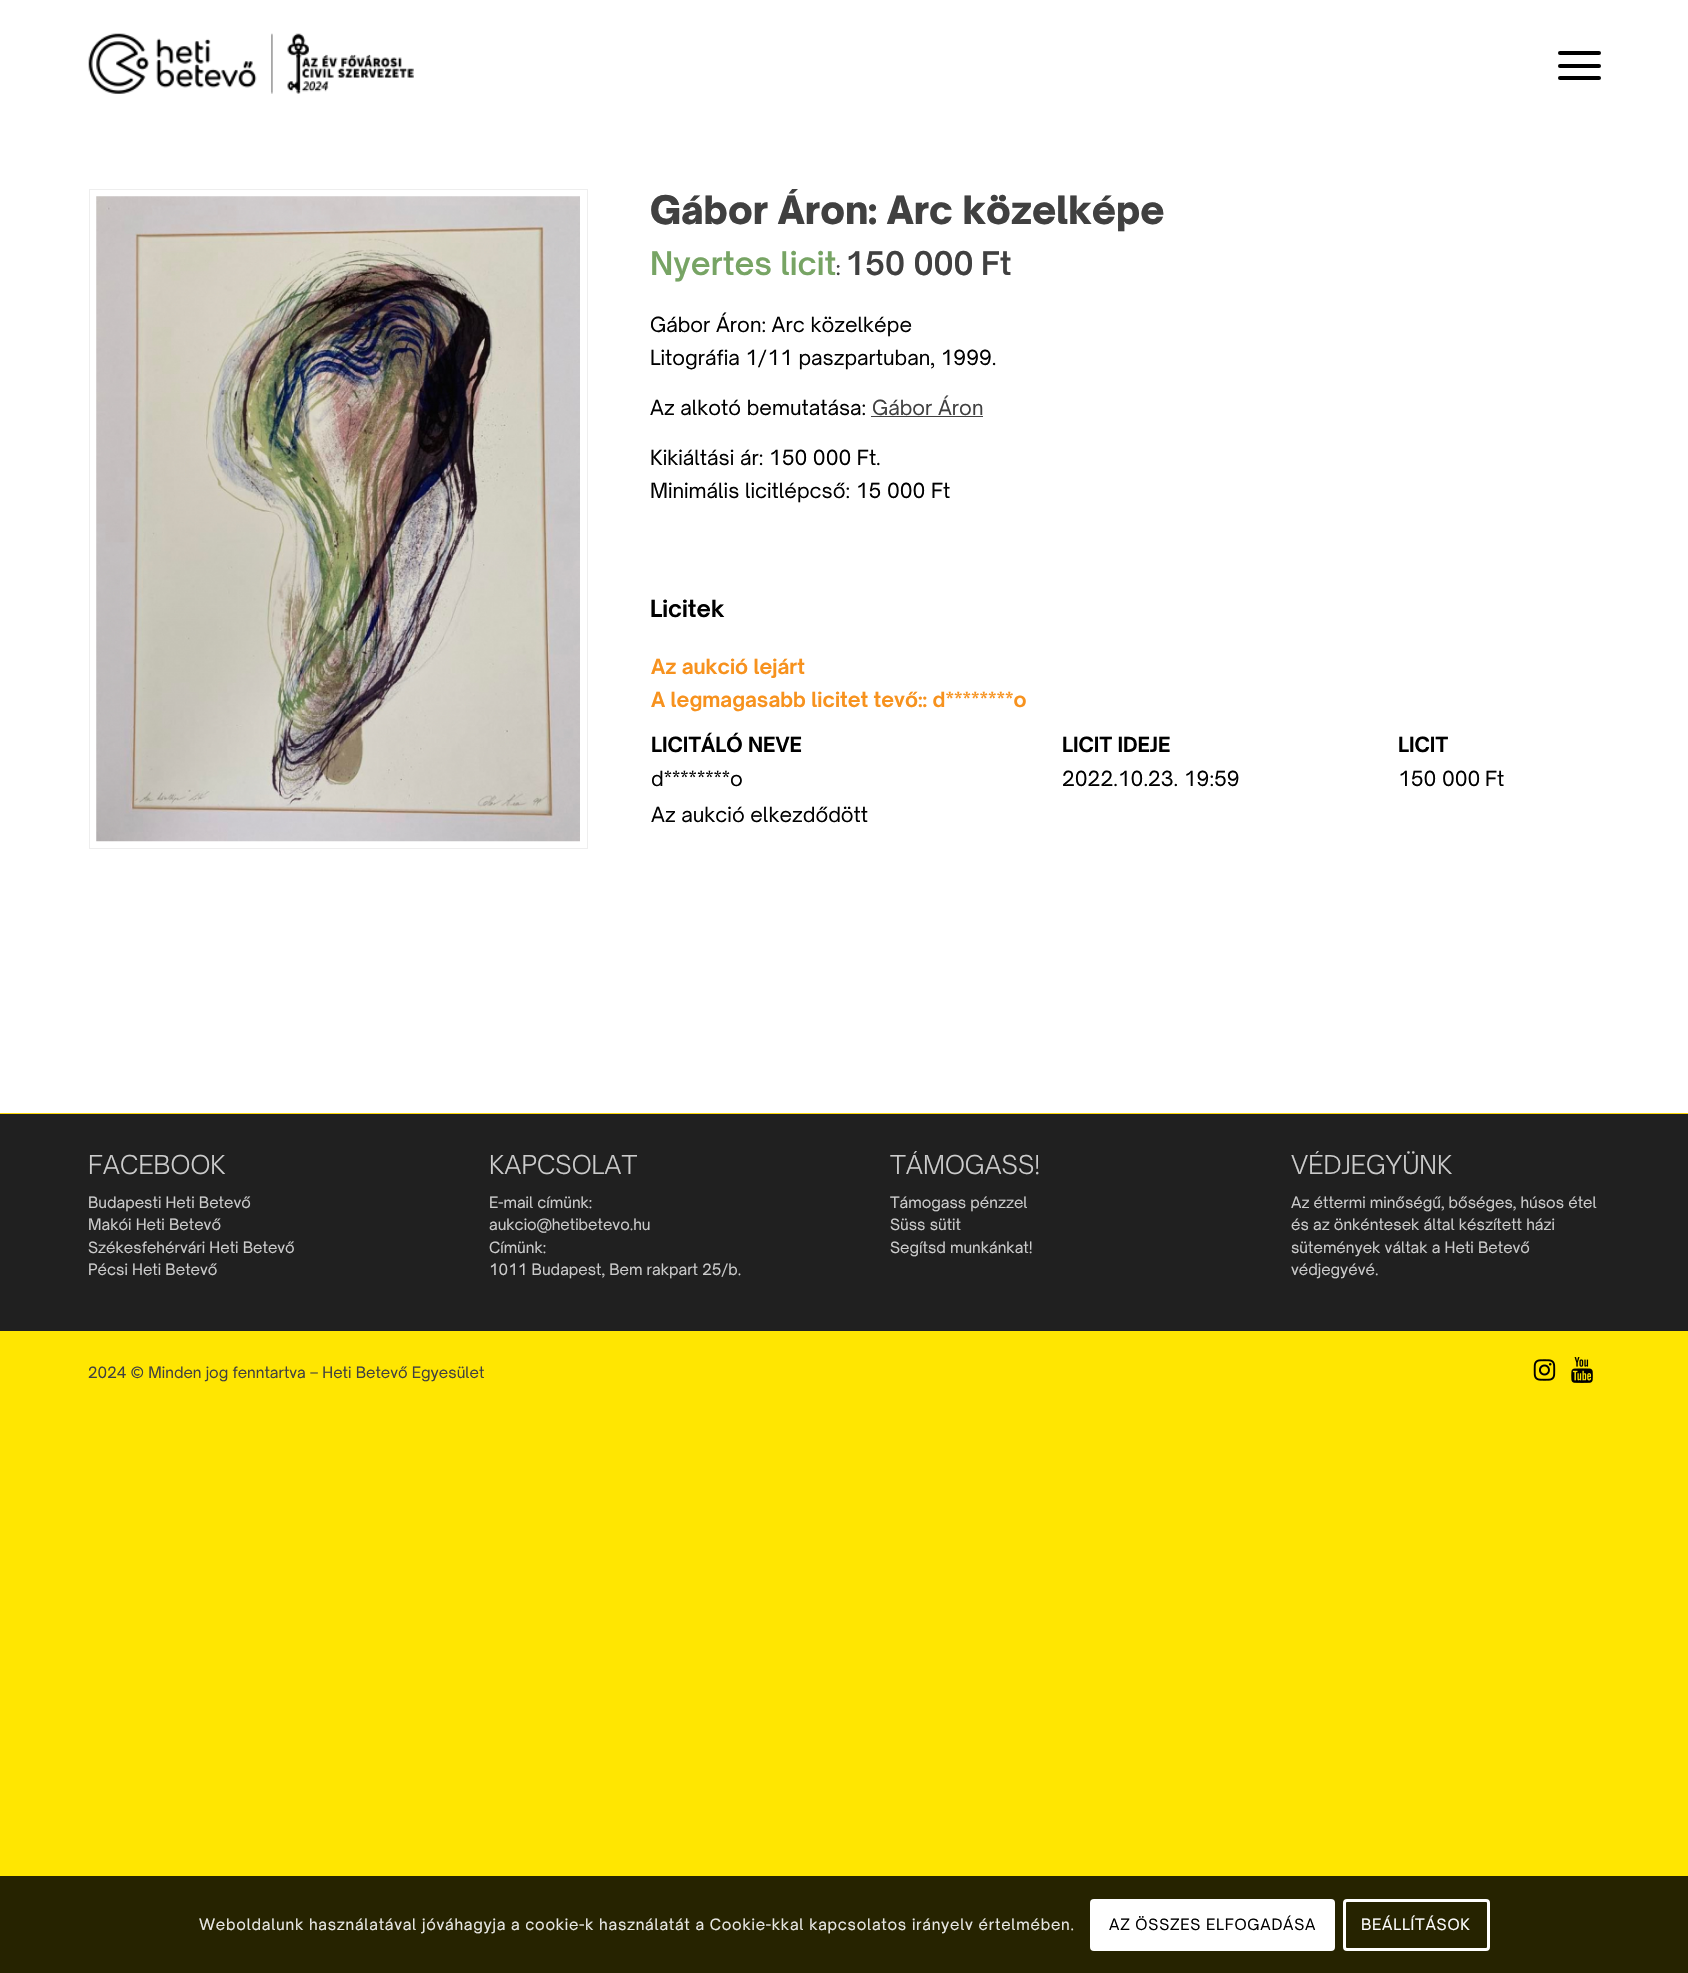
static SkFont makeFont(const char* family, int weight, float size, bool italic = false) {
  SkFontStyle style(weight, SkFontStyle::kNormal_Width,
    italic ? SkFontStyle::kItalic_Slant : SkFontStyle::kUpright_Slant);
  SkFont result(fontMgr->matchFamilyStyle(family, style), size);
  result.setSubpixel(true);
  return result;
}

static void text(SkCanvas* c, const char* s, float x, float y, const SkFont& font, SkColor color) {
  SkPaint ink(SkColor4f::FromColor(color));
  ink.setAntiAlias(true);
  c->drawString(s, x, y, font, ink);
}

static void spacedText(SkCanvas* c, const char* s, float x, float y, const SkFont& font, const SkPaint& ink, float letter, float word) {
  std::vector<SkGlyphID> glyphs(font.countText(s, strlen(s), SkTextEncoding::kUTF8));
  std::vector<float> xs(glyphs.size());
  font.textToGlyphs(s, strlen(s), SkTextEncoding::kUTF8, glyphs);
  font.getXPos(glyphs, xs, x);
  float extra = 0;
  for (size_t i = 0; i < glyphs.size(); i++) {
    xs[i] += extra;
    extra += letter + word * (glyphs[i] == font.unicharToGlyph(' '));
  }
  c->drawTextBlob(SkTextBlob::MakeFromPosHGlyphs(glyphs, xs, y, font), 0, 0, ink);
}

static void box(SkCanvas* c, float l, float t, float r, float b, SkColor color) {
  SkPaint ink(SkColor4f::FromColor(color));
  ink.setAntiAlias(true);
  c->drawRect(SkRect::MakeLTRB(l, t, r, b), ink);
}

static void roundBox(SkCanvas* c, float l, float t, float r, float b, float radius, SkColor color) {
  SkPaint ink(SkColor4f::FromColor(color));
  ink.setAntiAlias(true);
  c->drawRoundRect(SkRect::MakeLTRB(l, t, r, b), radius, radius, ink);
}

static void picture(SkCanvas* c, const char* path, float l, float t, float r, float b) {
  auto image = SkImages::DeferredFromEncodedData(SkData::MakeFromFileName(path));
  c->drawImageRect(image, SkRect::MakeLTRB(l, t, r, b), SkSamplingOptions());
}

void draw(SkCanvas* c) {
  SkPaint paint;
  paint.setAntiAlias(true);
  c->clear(0xffffe601);
  box(c, 0, 0, 1688, 1113, 0xffffffff);
  picture(c, "img_01.png", 88, 33, 414, 94);
  roundBox(c, 1558, 64, 1601, 68, 2, 0xff000000);
  roundBox(c, 1558, 51, 1601, 55, 2, 0xff000000);
  roundBox(c, 1558, 76, 1601, 80, 2, 0xff000000);
  paint.setStyle(SkPaint::kStroke_Style);
  paint.setStrokeWidth(1);
  paint.setColor(0xffeeeeee);
  c->drawRect(SkRect::MakeLTRB(89.5f, 189.5f, 587.5f, 848.5f), paint);
  picture(c, "img_02.png", 96, 196, 580, 842);
  c->save();
  c->clipRect(SkRect::MakeLTRB(650, 189, 1601, 871));
  SkFont face1 = makeFont("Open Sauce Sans", 900, 37.5f);
  text(c, "Gábor Áron: Arc közelképe", 650, 224, face1, 0xff404040);
  c->restore();
  SkFont face2 = makeFont("Open Sauce Sans", 600, 31.25f);
  text(c, "Nyertes licit", 650, 275, face2, 0xff77a464);
  SkFont face3 = makeFont("Open Sauce Sans", 600, 19);
  text(c, ":", 836, 275, face3, 0xff404040);
  text(c, "150 000", 845, 275, face2, 0xff404040);
  text(c, "Ft", 981, 275, face2, 0xff404040);
  SkFont face4 = makeFont("Open Sauce Sans", 400, 20);
  text(c, "Gábor Áron: Arc közelképe", 650, 332, face4, 0xff000000);
  text(c, "Litográfia 1/11 paszpartuban, 1999.", 650, 365, face4, 0xff000000);
  text(c, "Az alkotó bemutatása:", 650, 415, face4, 0xff000000);
  text(c, "Gábor Áron", 872, 415, face4, 0xff404040);
  box(c, 871, 416, 983, 417, 0xff404040);
  text(c, "Kikiáltási ár: 150 000 Ft.", 650, 465, face4, 0xff000000);
  text(c, "Minimális licitlépcső: 15 000 Ft", 650, 498, face4, 0xff000000);
  SkFont face5 = makeFont("Open Sauce Sans", 700, 22.5f);
  text(c, "Licitek", 650, 617, face5, 0xff000000);
  SkFont face6 = makeFont("Open Sauce Sans", 700, 20);
  text(c, "Az aukció lejárt", 651, 674, face6, 0xfff7921e);
  text(c, "A legmagasabb licitet tevő:: d********o", 651, 707, face6, 0xfff7921e);
  text(c, "LICITÁLÓ NEVE", 651, 752, face6, 0xff000000);
  text(c, "LICIT IDEJE", 1062, 752, face6, 0xff000000);
  text(c, "LICIT", 1398, 752, face6, 0xff000000);
  text(c, "d********o", 651, 786, face4, 0xff000000);
  text(c, "2022.10.23. 19:59", 1062, 786, face4, 0xff000000);
  text(c, "150 000", 1398, 786, face4, 0xff000000);
  text(c, "Ft", 1485, 786, face4, 0xff000000);
  text(c, "Az aukció elkezdődött", 651, 822, face4, 0xff000000);
  box(c, 0, 1114, 1688, 1331, 0xff202020);
  box(c, 0, 1113, 1688, 1114, 0xfffcd80a);
  SkFont face7 = makeFont("Open Sauce Sans", 300, 25);
  text(c, "FACEBOOK", 88, 1174, face7, 0xffcccccc);
  SkFont face8 = makeFont("Open Sauce Sans", 400, 15);
  text(c, "Budapesti Heti Betevő", 88, 1208, face8, 0xffcccccc);
  text(c, "Makói Heti Betevő", 88, 1230, face8, 0xffcccccc);
  text(c, "Székesfehérvári Heti Betevő", 88, 1253, face8, 0xffcccccc);
  text(c, "Pécsi Heti Betevő", 88, 1275, face8, 0xffcccccc);
  text(c, "KAPCSOLAT", 489, 1174, face7, 0xffcccccc);
  text(c, "E-mail címünk:", 489, 1208, face8, 0xffcccccc);
  text(c, "aukcio@hetibetevo.hu", 489, 1230, face8, 0xffcccccc);
  text(c, "Címünk:", 489, 1253, face8, 0xffcccccc);
  text(c, "1011 Budapest, Bem rakpart 25/b.", 489, 1275, face8, 0xffcccccc);
  c->save();
  c->clipRect(SkRect::MakeLTRB(890, 1151, 1200, 1273));
  text(c, "TÁMOGASS!", 890, 1174, face7, 0xffcccccc);
  c->restore();
  text(c, "Támogass pénzzel", 890, 1208, face8, 0xffcccccc);
  text(c, "Süss sütit", 890, 1230, face8, 0xffcccccc);
  text(c, "Segítsd munkánkat!", 890, 1253, face8, 0xffcccccc);
  c->save();
  c->clipRect(SkRect::MakeLTRB(1290, 1151, 1600, 1295));
  text(c, "VÉDJEGYÜNK", 1291, 1174, face7, 0xffcccccc);
  c->restore();
  text(c, "Az éttermi minőségű, bőséges, húsos étel", 1291, 1208, face8, 0xffcccccc);
  text(c, "és az önkéntesek által készített házi", 1291, 1230, face8, 0xffcccccc);
  text(c, "sütemények váltak a Heti Betevő", 1291, 1253, face8, 0xffcccccc);
  text(c, "védjegyévé.", 1291, 1275, face8, 0xffcccccc);
  text(c, "2024 © Minden jog fenntartva – Heti Betevő Egyesület", 88, 1378, face8, 0xff404040);
  picture(c, "img_03.png", 1533, 1359, 1556, 1381);
  picture(c, "img_04.png", 1571, 1357, 1593, 1383);
  box(c, 0, 1876, 1688, 1973, 0xff262300);
  paint.setStyle(SkPaint::kFill_Style);
  paint.setColor(0xffe9e9e6);
  spacedText(c, "Weboldalunk használatával jóváhagyja a cookie-k használatát a Cookie-kkal kapcsolatos irányelv értelmében.", 199, 1930, face8, paint, 0.75f, 0);
  roundBox(c, 1090, 1899, 1335, 1951, 4, 0xffffffff);
  paint.setColor(0xff000000);
  spacedText(c, "AZ ÖSSZES ELFOGADÁSA", 1109, 1930, face8, paint, 0.75f, 0);
  paint.setStyle(SkPaint::kStroke_Style);
  paint.setStrokeWidth(3);
  paint.setColor(0xffffffff);
  c->drawRoundRect(SkRect::MakeLTRB(1344.5f, 1900.5f, 1488.5f, 1949.5f), 2.5f, 2.5f, paint);
  paint.setStyle(SkPaint::kFill_Style);
  spacedText(c, "BEÁLLÍTÁSOK", 1361, 1930, face8, paint, 0.75f, 0);
}
